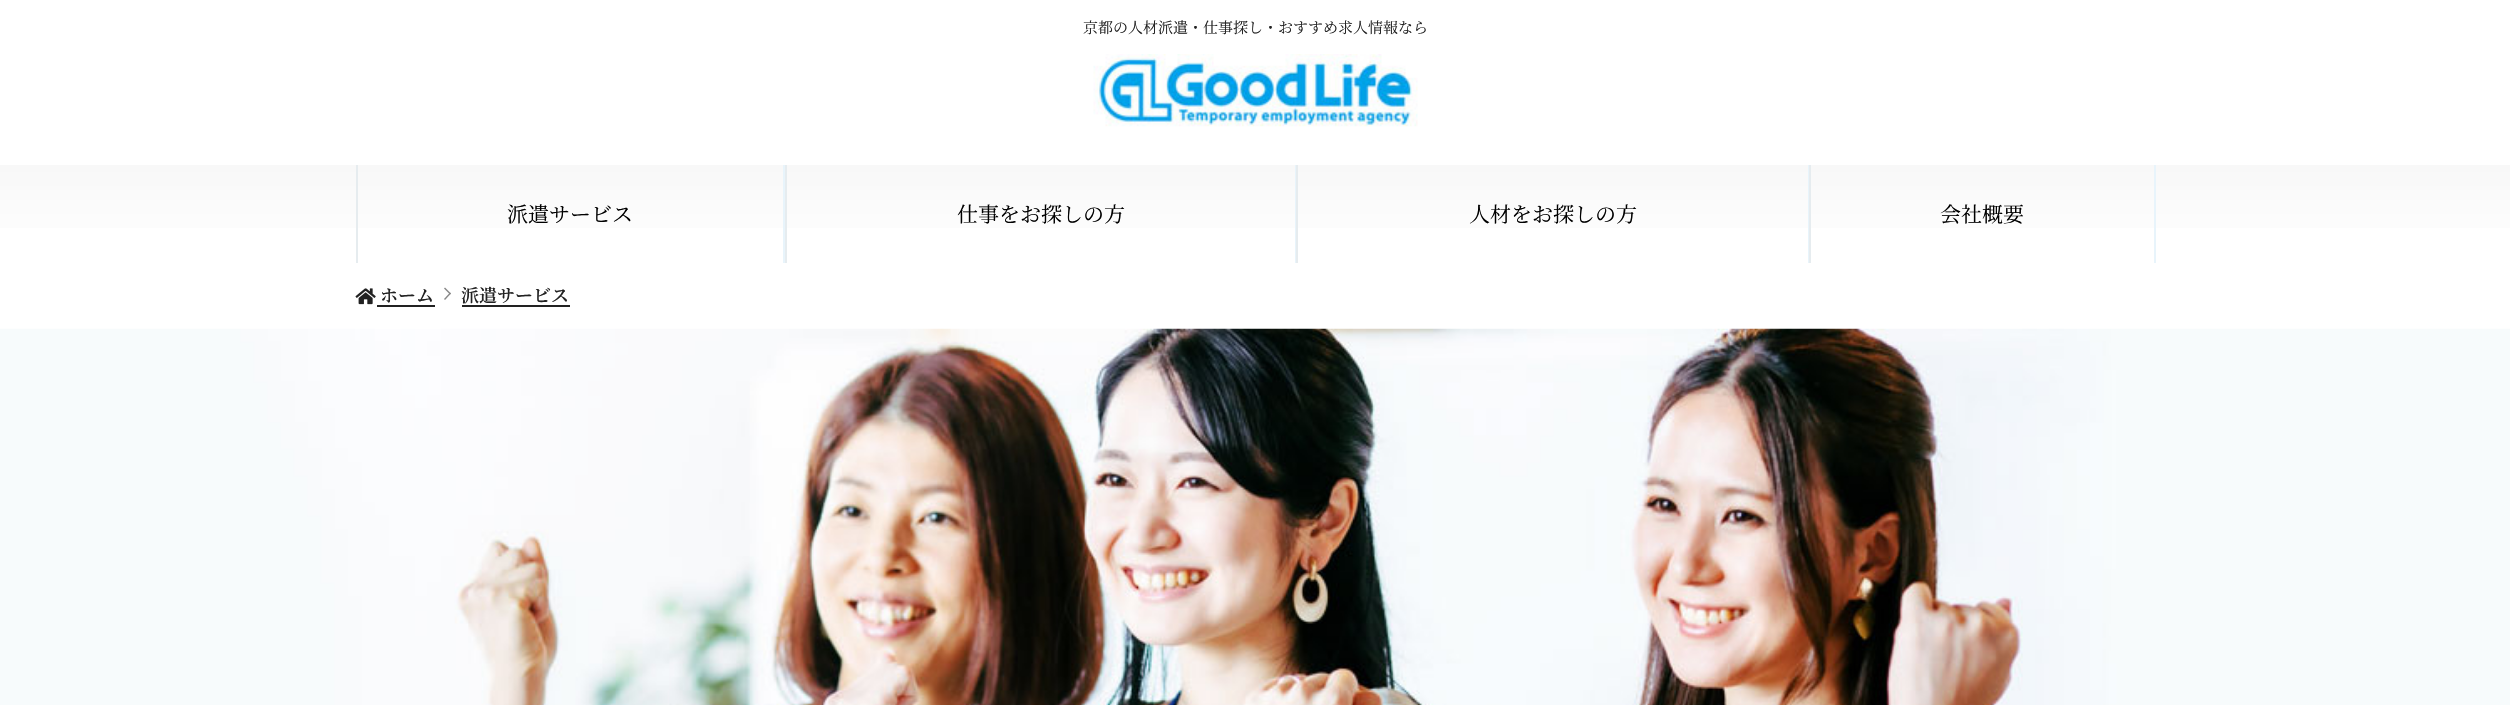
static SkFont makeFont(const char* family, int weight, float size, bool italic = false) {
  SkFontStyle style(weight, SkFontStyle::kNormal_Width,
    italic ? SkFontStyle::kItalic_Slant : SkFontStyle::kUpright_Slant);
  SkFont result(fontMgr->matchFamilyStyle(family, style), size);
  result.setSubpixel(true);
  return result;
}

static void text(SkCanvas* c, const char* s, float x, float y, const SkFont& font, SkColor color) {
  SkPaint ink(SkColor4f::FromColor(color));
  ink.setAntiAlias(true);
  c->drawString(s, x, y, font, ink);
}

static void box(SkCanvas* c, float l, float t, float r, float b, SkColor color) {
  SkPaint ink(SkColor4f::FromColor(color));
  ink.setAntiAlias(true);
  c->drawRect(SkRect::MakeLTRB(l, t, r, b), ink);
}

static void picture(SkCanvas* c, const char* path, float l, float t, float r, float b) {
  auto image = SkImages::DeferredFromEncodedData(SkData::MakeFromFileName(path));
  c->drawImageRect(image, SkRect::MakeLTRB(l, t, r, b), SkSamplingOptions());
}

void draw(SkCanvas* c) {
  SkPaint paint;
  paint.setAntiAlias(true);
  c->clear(0xffffffff);
  SkFont face1 = makeFont("Noto Serif JP", 400, 15);
  text(c, "京都の人材派遣・仕事探し・おすすめ求人情報なら", 1083, 33, face1, 0xff222222);
  picture(c, "img_01.png", 1093, 54, 1418, 127);
  {
    const SkColor colors[] = {0xfff8f8f8, 0xffffffff};
    const float stops[] = {0, 1};
    const SkPoint ends[] = {{1256, 165}, {1256, 263}};
    paint.setShader(SkGradientShader::MakeLinear(ends, colors, stops, 2, SkTileMode::kClamp));
    paint.setAlpha(255);
  }
  c->drawRect(SkRect::MakeLTRB(0, 165, 2510, 228), paint);
  box(c, 783, 165, 785, 263, 0xffe8f4fb);
  box(c, 356, 165, 358, 263, 0xffe6ecef);
  SkFont face2 = makeFont("Noto Serif JP", 400, 21);
  text(c, "派遣サービス", 507, 222, face2, 0xff000000);
  box(c, 1295, 165, 1296, 263, 0xffe8f4fb);
  box(c, 785, 165, 787, 263, 0xffe6ecef);
  text(c, "仕事をお探しの方", 957, 222, face2, 0xff000000);
  box(c, 1808, 165, 1809, 263, 0xffe8f4fb);
  box(c, 1296, 165, 1298, 263, 0xffe6ecef);
  text(c, "人材をお探しの方", 1469, 222, face2, 0xff000000);
  box(c, 2154, 165, 2156, 263, 0xffe8f4fb);
  box(c, 1809, 165, 1811, 263, 0xffe6ecef);
  text(c, "会社概要", 1940, 222, face2, 0xff000000);
  picture(c, "img_02.png", 355, 288, 376, 305);
  SkFont face3 = makeFont("Noto Serif JP", 600, 18);
  text(c, "ホーム", 380, 302, face3, 0xff222222);
  paint.setShader(nullptr);
  paint.setColor(0xff888888);
  c->drawPath(SkPathBuilder().moveTo(445, 287.5f).lineTo(451, 293.5f).lineTo(450, 294.5f).lineTo(444, 288.5f).close().detach(), paint);
  c->drawPath(SkPathBuilder().moveTo(450, 292.5f).lineTo(451, 293.5f).lineTo(445, 300).lineTo(444, 299).close().detach(), paint);
  box(c, 377, 305, 435, 307, 0xff222222);
  text(c, "派遣サービス", 461, 302, face3, 0xff222222);
  box(c, 462, 305, 570, 307, 0xff222222);
  picture(c, "img_03.png", 0, 328, 2510, 705);
}
